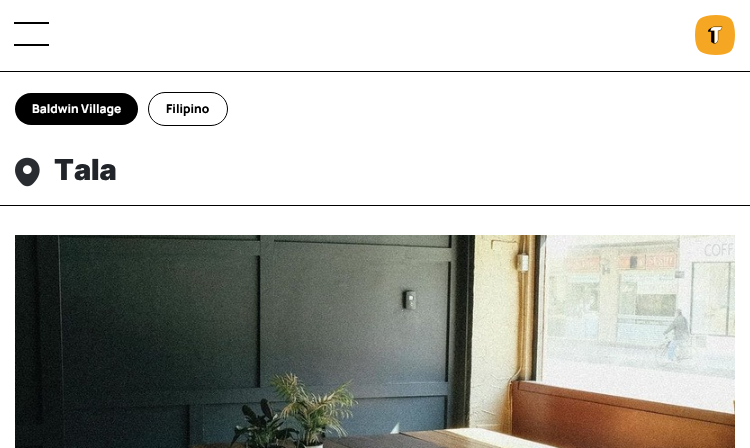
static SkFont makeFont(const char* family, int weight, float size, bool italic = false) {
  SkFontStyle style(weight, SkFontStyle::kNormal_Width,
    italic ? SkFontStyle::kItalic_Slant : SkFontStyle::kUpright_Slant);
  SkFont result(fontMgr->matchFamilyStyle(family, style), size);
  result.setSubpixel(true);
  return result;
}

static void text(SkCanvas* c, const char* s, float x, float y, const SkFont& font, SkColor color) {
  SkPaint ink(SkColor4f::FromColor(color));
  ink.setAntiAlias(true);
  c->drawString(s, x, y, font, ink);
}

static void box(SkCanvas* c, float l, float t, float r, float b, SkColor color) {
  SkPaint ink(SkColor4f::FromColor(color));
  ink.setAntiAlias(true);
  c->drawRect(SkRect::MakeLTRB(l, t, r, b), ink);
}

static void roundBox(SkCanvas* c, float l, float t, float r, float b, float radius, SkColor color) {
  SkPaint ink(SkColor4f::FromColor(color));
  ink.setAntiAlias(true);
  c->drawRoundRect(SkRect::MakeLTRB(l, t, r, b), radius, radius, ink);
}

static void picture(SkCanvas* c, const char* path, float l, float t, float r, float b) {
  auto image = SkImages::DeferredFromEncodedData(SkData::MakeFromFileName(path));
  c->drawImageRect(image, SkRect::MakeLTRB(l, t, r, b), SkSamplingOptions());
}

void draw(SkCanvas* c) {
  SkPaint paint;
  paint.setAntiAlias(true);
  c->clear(0xffffffff);
  box(c, 0, 71, 750, 72, 0xff000000);
  picture(c, "img_01.png", 695, 15, 735, 55);
  box(c, 14, 22, 49, 24, 0xff000000);
  box(c, 14, 44, 49, 46, 0xff000000);
  box(c, 0, 205, 750, 206, 0xff000000);
  roundBox(c, 15, 93, 138, 125, 16, 0xff000000);
  SkFont face1 = makeFont("Manrope", 800, 12);
  text(c, "Baldwin Village", 32, 113, face1, 0xffffffff);
  paint.setStyle(SkPaint::kStroke_Style);
  paint.setStrokeWidth(1);
  paint.setColor(0xff000000);
  c->drawRoundRect(SkRect::MakeLTRB(148.5f, 92.5f, 227.5f, 125.5f), 16.5f, 16.5f, paint);
  text(c, "Filipino", 166, 113, face1, 0xff000000);
  picture(c, "img_02.png", 15, 157, 40, 187);
  SkFont face2 = makeFont("Inter", 900, 29);
  text(c, "Tala", 54, 180, face2, 0xff212529);
  picture(c, "img_03.png", 15, 235, 735, 448);
}
